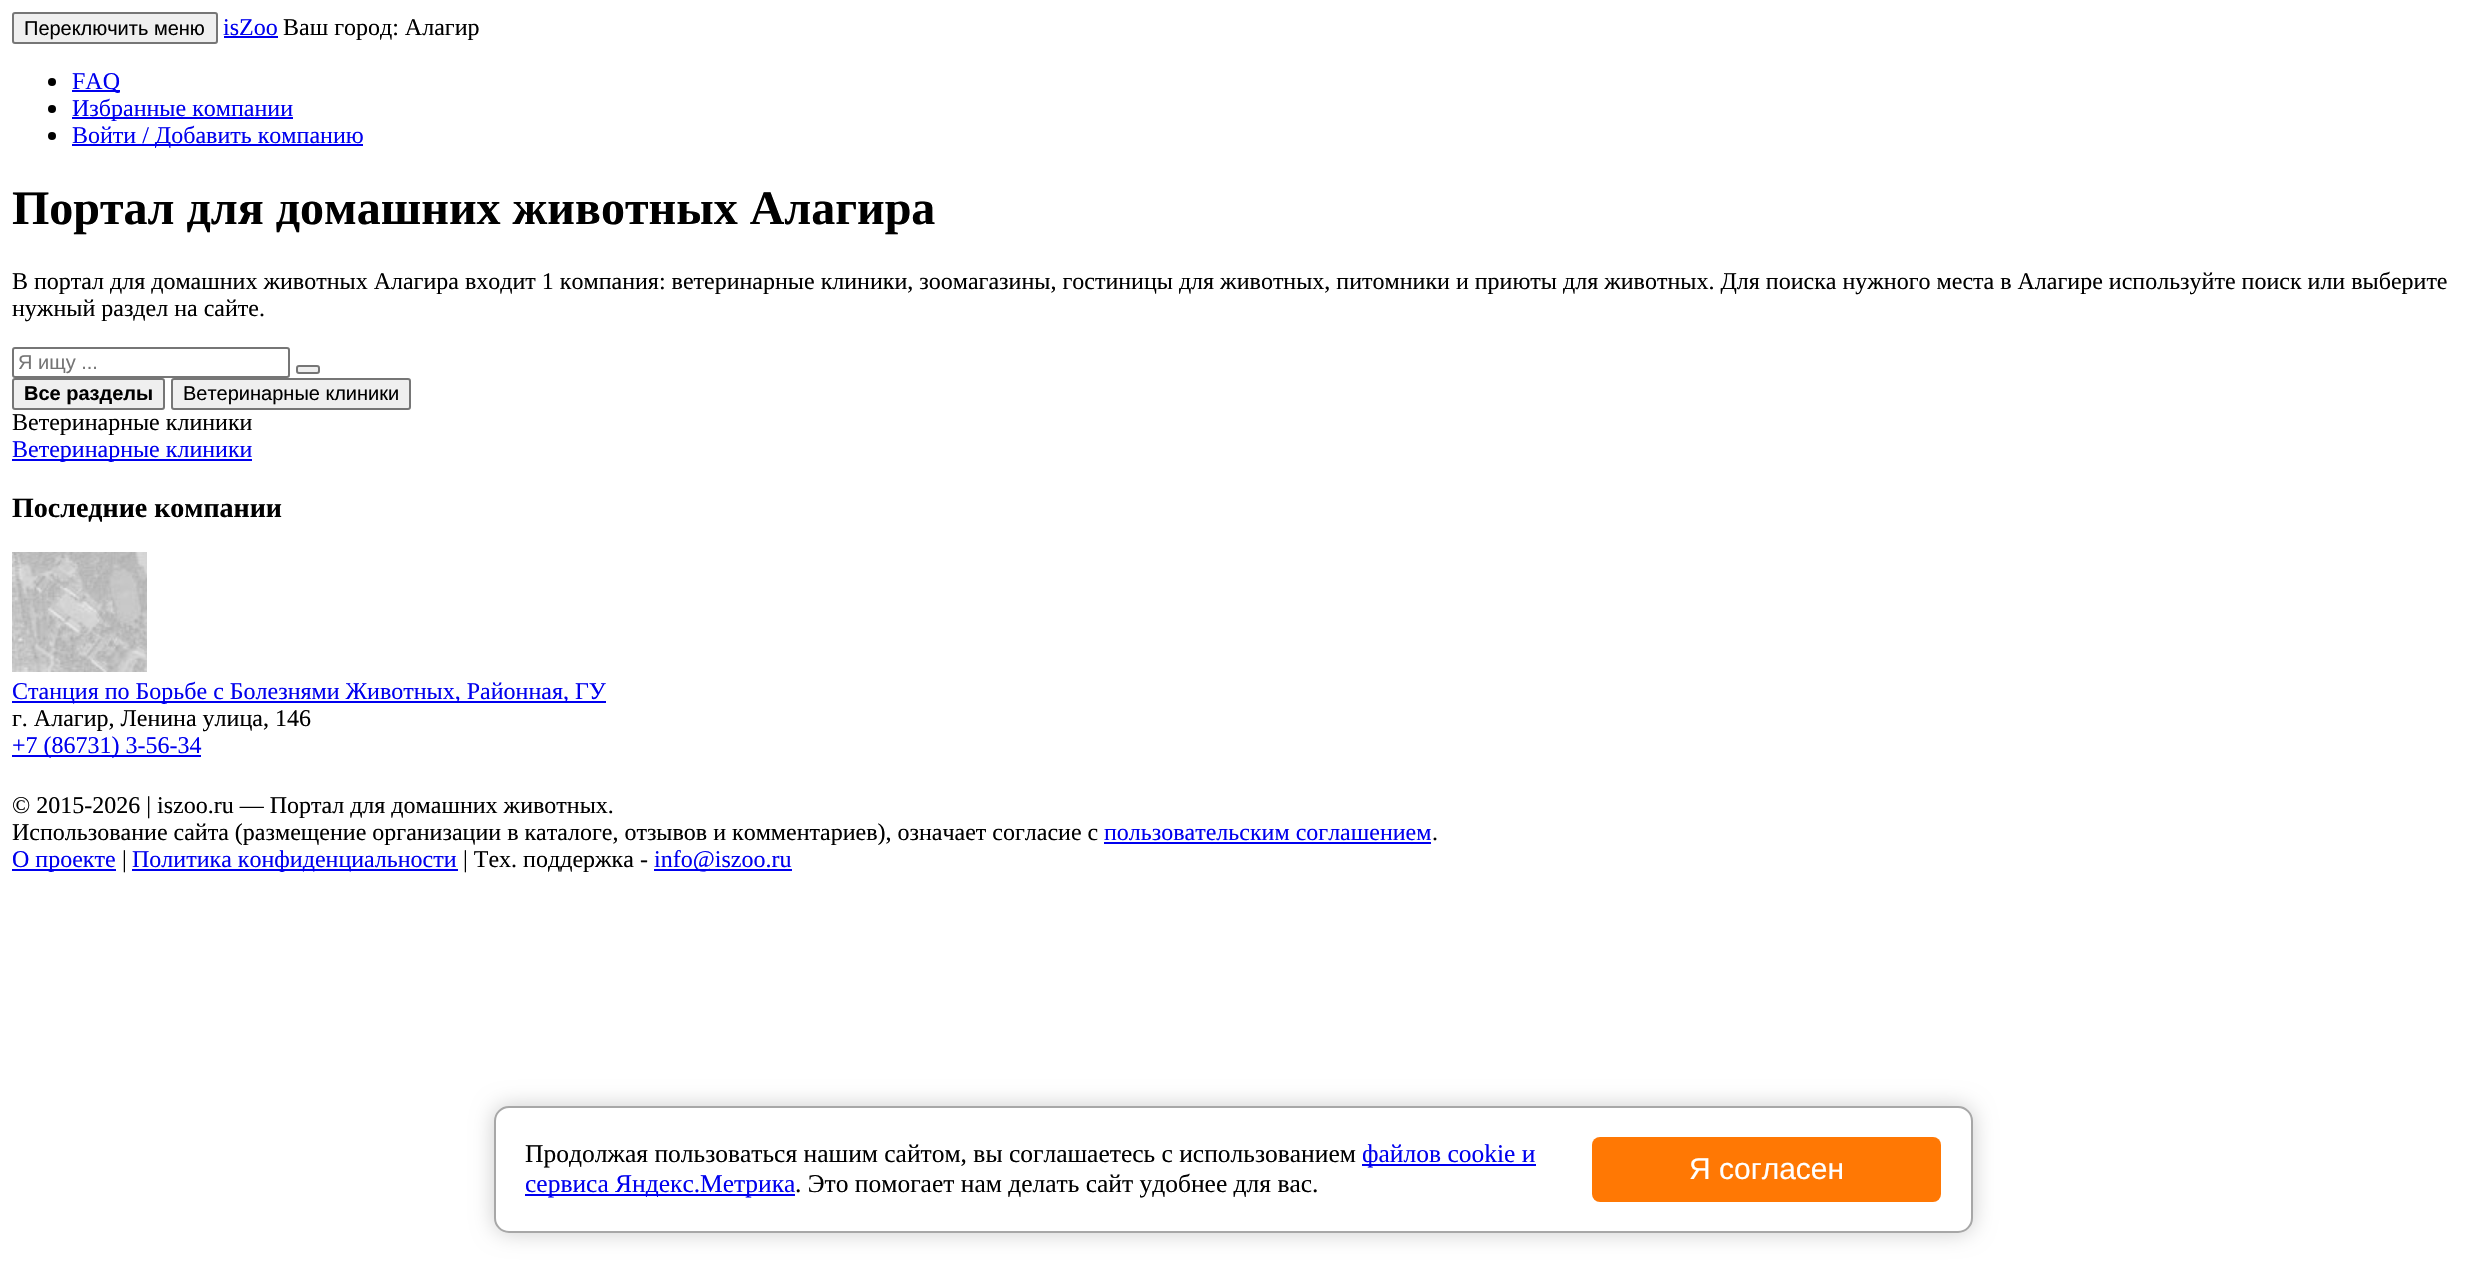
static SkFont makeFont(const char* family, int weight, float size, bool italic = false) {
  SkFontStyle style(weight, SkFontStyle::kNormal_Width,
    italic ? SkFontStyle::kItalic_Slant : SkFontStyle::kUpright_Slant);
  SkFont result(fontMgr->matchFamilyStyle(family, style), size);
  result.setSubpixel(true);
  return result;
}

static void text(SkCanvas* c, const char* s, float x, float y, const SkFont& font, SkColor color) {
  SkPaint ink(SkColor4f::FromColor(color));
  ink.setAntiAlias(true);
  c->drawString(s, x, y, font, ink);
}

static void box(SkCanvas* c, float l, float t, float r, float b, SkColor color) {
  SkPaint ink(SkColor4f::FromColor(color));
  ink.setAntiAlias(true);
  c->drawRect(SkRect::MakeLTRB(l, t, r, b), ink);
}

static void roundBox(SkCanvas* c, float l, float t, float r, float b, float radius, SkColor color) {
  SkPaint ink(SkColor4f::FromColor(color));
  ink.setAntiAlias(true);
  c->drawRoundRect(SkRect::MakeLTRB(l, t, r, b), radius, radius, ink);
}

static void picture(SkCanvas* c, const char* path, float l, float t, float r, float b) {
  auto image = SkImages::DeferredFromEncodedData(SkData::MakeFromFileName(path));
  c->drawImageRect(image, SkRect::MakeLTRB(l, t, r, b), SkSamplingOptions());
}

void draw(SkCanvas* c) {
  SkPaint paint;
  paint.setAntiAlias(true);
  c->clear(0xffffffff);
  paint.setColor(0xffefefef);
  c->drawRoundRect(SkRect::MakeLTRB(13, 13, 217, 43), 2, 2, paint);
  paint.setStyle(SkPaint::kStroke_Style);
  paint.setStrokeWidth(2);
  paint.setColor(0xff767676);
  c->drawRoundRect(SkRect::MakeLTRB(13, 13, 217, 43), 2, 2, paint);
  SkFont face1 = makeFont("Liberation Sans", 400, 20);
  text(c, "Переключить меню", 24, 35, face1, 0xff000000);
  SkFont face2 = makeFont("Liberation Serif", 400, 24);
  text(c, "isZoo", 223, 35, face2, 0xff0000ee);
  box(c, 224, 36, 278, 38, 0xff0000ee);
  text(c, "Ваш город: Алагир", 283, 35, face2, 0xff000000);
  paint.setStyle(SkPaint::kFill_Style);
  paint.setColor(0xff000000);
  c->drawCircle(52, 82, 4, paint);
  box(c, 72, 90, 120, 92, 0xff0000ee);
  text(c, "FAQ", 72, 89, face2, 0xff0000ee);
  c->drawCircle(52, 109, 4, paint);
  box(c, 72, 117, 293, 119, 0xff0000ee);
  text(c, "Избранные компании", 72, 116, face2, 0xff0000ee);
  c->drawCircle(52, 136, 4, paint);
  box(c, 72, 144, 363, 146, 0xff0000ee);
  text(c, "Войти / Добавить компанию", 72, 143, face2, 0xff0000ee);
  SkFont face3 = makeFont("Liberation Serif", 700, 48);
  text(c, "Портал для домашних животных Алагира", 12, 224, face3, 0xff000000);
  text(c, "В портал для домашних животных Алагира входит 1 компания: ветеринарные клиники, зоомагазины, гостиницы для животных, питомники и приюты для животных. Для поиска нужного места в Алагире используйте поиск или выберите", 12, 289, face2, 0xff000000);
  text(c, "нужный раздел на сайте.", 12, 316, face2, 0xff000000);
  paint.setStyle(SkPaint::kStroke_Style);
  paint.setColor(0xff767676);
  c->drawRoundRect(SkRect::MakeLTRB(13, 348, 289, 377), 2, 2, paint);
  text(c, "Я ищу ...", 18, 369, face1, 0xff757575);
  paint.setStyle(SkPaint::kFill_Style);
  paint.setColor(0xffefefef);
  c->drawRoundRect(SkRect::MakeLTRB(297, 366, 319, 373), 2, 2, paint);
  paint.setStyle(SkPaint::kStroke_Style);
  paint.setColor(0xff767676);
  c->drawRoundRect(SkRect::MakeLTRB(297, 366, 319, 373), 2, 2, paint);
  paint.setStyle(SkPaint::kFill_Style);
  paint.setColor(0xffefefef);
  c->drawRoundRect(SkRect::MakeLTRB(13, 379, 164, 409), 2, 2, paint);
  paint.setStyle(SkPaint::kStroke_Style);
  paint.setColor(0xff767676);
  c->drawRoundRect(SkRect::MakeLTRB(13, 379, 164, 409), 2, 2, paint);
  SkFont face4 = makeFont("Liberation Sans", 700, 20);
  text(c, "Все разделы", 24, 400, face4, 0xff000000);
  paint.setStyle(SkPaint::kFill_Style);
  paint.setColor(0xffefefef);
  c->drawRoundRect(SkRect::MakeLTRB(172, 379, 410, 409), 2, 2, paint);
  paint.setStyle(SkPaint::kStroke_Style);
  paint.setColor(0xff767676);
  c->drawRoundRect(SkRect::MakeLTRB(172, 379, 410, 409), 2, 2, paint);
  text(c, "Ветеринарные клиники", 183, 400, face1, 0xff000000);
  text(c, "Ветеринарные клиники", 12, 430, face2, 0xff000000);
  box(c, 12, 459, 252, 461, 0xff0000ee);
  text(c, "Ветеринарные клиники", 12, 457, face2, 0xff0000ee);
  SkFont face5 = makeFont("Liberation Serif", 700, 28);
  text(c, "Последние компании", 12, 517, face5, 0xff000000);
  picture(c, "img_01.png", 12, 552, 147, 672);
  box(c, 12, 701, 606, 703, 0xff0000ee);
  text(c, "Станция по Борьбе с Болезнями Животных, Районная, ГУ", 12, 699, face2, 0xff0000ee);
  text(c, "г. Алагир, Ленина улица, 146", 12, 726, face2, 0xff000000);
  box(c, 12, 755, 201, 757, 0xff0000ee);
  text(c, "+7 (86731) 3-56-34", 12, 753, face2, 0xff0000ee);
  text(c, "© 2015-2026 | iszoo.ru — Портал для домашних животных.", 12, 813, face2, 0xff000000);
  text(c, "Использование сайта (размещение организации в каталоге, отзывов и комментариев), означает согласие с", 12, 840, face2, 0xff000000);
  text(c, "пользовательским соглашением", 1104, 840, face2, 0xff0000ee);
  box(c, 1104, 842, 1431, 844, 0xff0000ee);
  text(c, ".", 1432, 840, face2, 0xff000000);
  box(c, 12, 869, 116, 871, 0xff0000ee);
  text(c, "О проекте", 12, 867, face2, 0xff0000ee);
  text(c, "|", 122, 867, face2, 0xff000000);
  box(c, 132, 869, 458, 871, 0xff0000ee);
  text(c, "Политика конфиденциальности", 132, 867, face2, 0xff0000ee);
  text(c, "| Тех. поддержка -", 463, 867, face2, 0xff000000);
  box(c, 654, 869, 792, 871, 0xff0000ee);
  text(c, "info@iszoo.ru", 654, 867, face2, 0xff0000ee);
  paint.setStyle(SkPaint::kFill_Style);
  paint.setColor(0x33000000);
  paint.setMaskFilter(SkMaskFilter::MakeBlur(kNormal_SkBlurStyle, 11));
  c->drawRoundRect(SkRect::MakeLTRB(494, 1106, 1973, 1233), 15, 15, paint);
  paint.setMaskFilter(nullptr);
  paint.setColor(0xffffffff);
  c->drawRoundRect(SkRect::MakeLTRB(495, 1107, 1972, 1232), 14, 14, paint);
  paint.setStyle(SkPaint::kStroke_Style);
  paint.setColor(0xffa7a7a7);
  c->drawRoundRect(SkRect::MakeLTRB(495, 1107, 1972, 1232), 14, 14, paint);
  SkFont face6 = makeFont("Liberation Serif", 400, 25.5f);
  text(c, "Продолжая пользоваться нашим сайтом, вы соглашаетесь с использованием", 525, 1162, face6, 0xff000000);
  box(c, 1362, 1164, 1536, 1166, 0xff0000ee);
  text(c, "файлов cookie и", 1362, 1162, face6, 0xff0000ee);
  box(c, 525, 1194, 795, 1196, 0xff0000ee);
  text(c, "сервиса Яндекс.Метрика", 525, 1192, face6, 0xff0000ee);
  text(c, ". Это помогает нам делать сайт удобнее для вас.", 795, 1192, face6, 0xff000000);
  roundBox(c, 1592, 1137, 1941, 1202, 8, 0xffff7804);
  SkFont face7 = makeFont("Liberation Sans", 400, 30);
  text(c, "Я согласен", 1689, 1179, face7, 0xffffffff);
}
